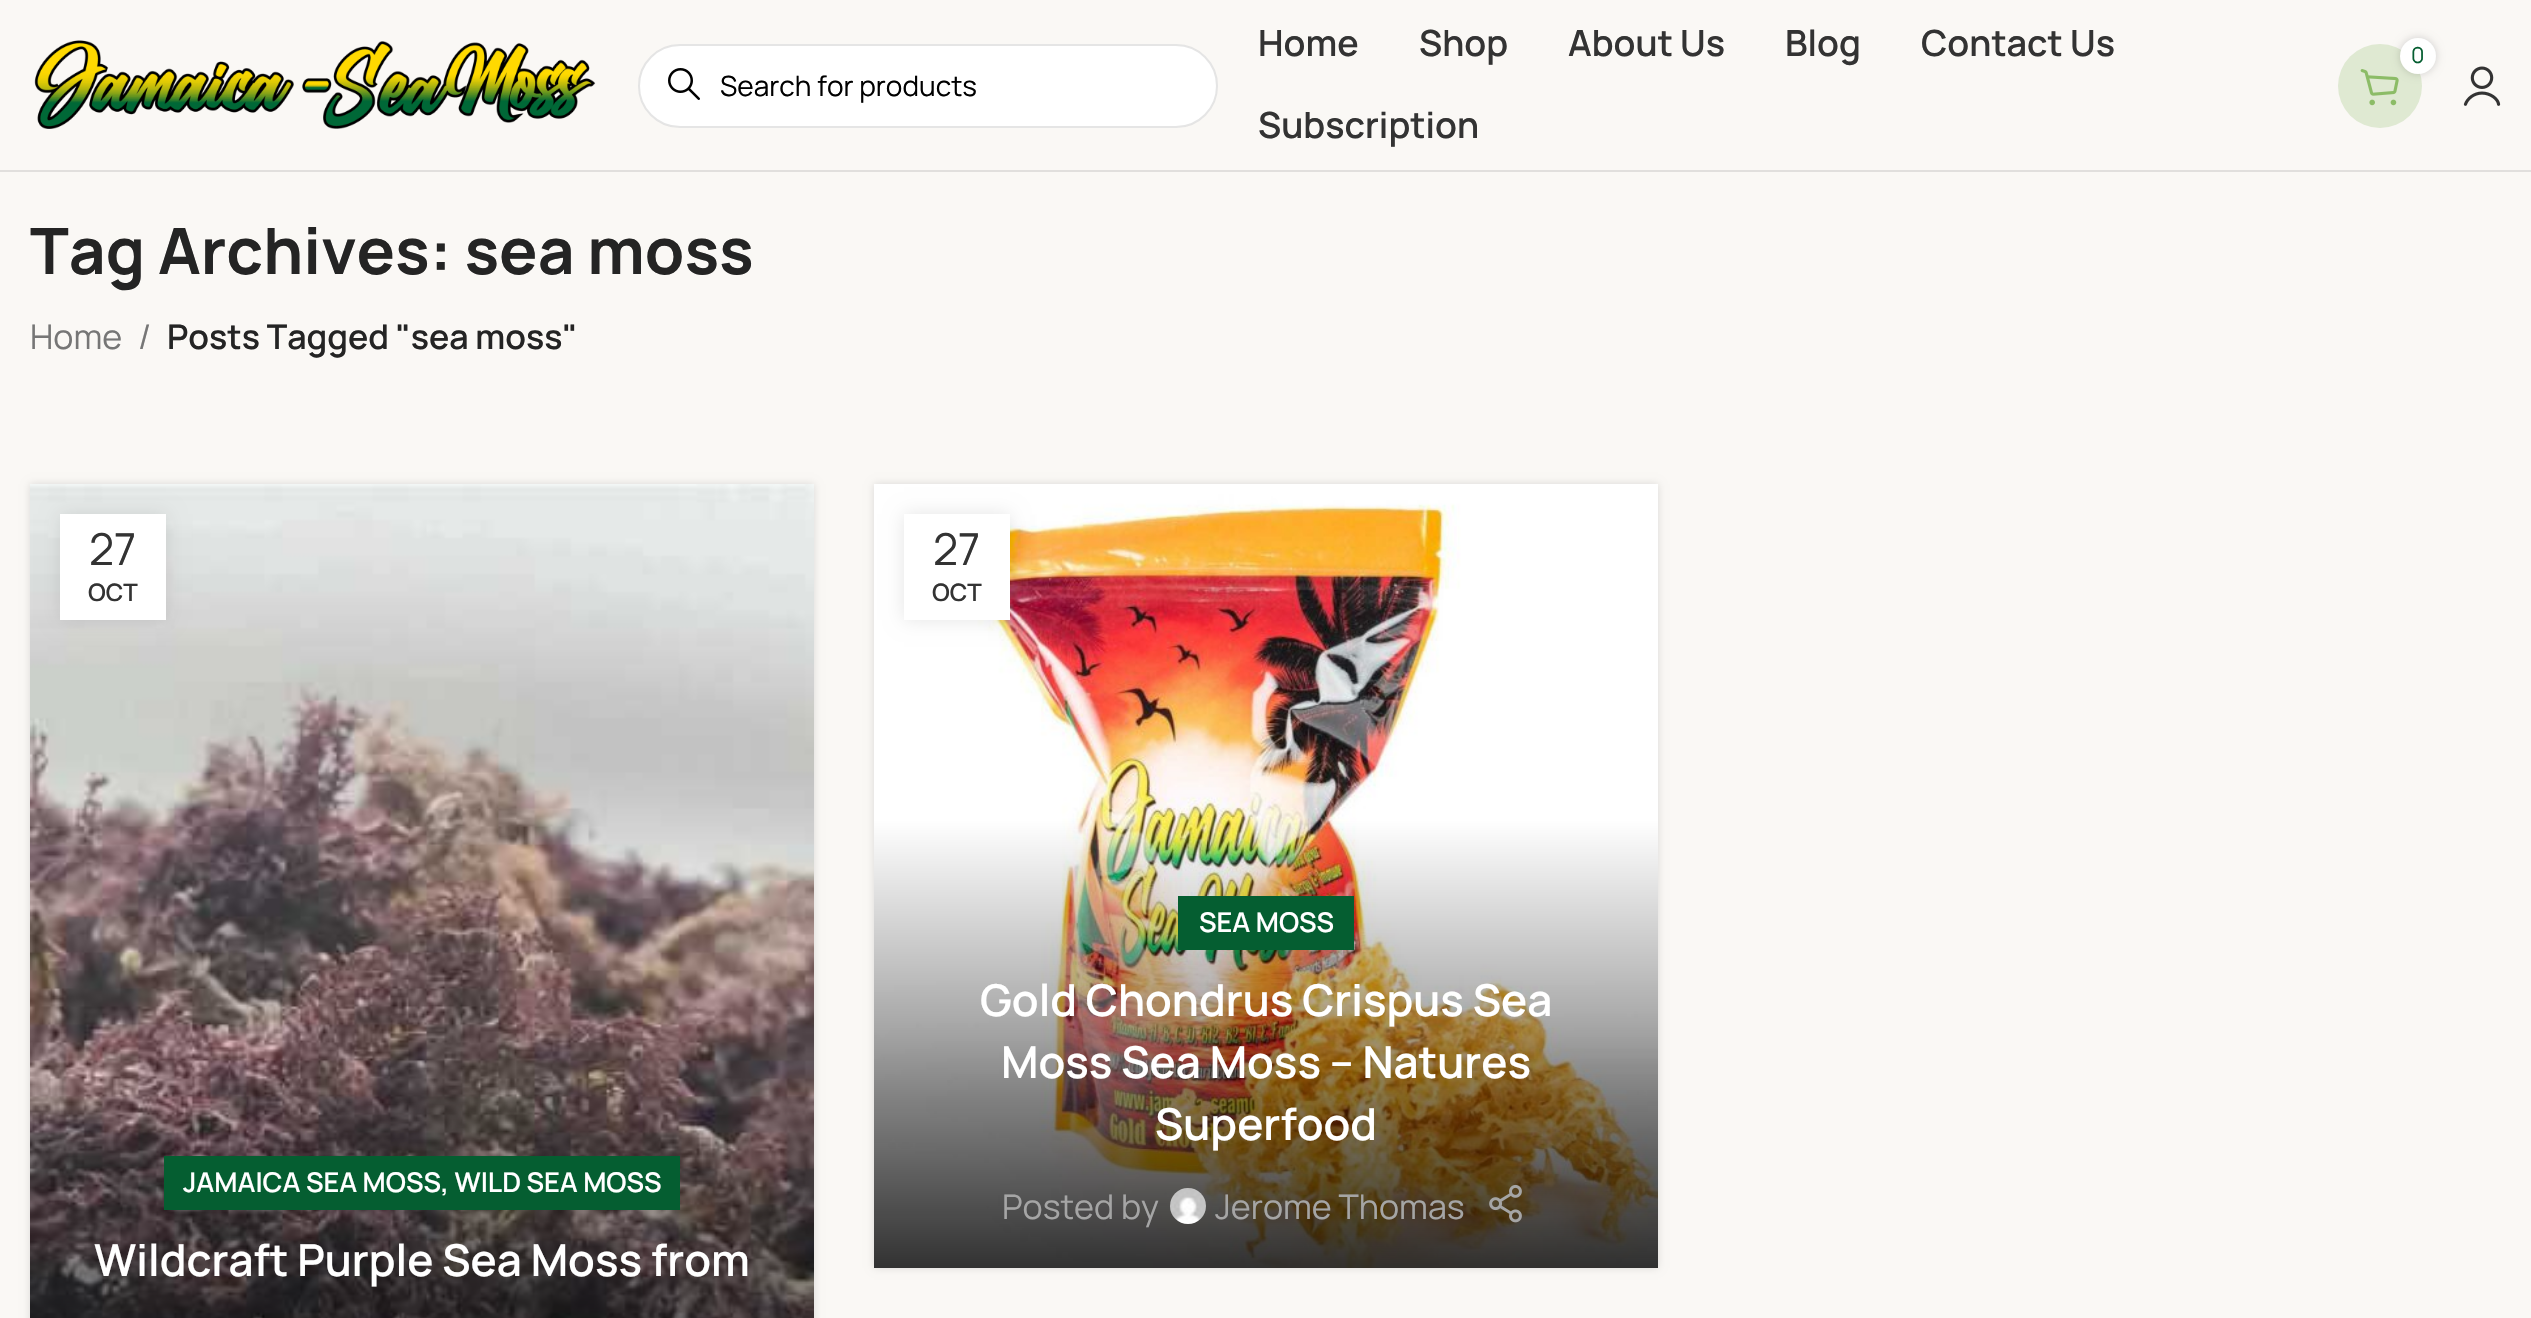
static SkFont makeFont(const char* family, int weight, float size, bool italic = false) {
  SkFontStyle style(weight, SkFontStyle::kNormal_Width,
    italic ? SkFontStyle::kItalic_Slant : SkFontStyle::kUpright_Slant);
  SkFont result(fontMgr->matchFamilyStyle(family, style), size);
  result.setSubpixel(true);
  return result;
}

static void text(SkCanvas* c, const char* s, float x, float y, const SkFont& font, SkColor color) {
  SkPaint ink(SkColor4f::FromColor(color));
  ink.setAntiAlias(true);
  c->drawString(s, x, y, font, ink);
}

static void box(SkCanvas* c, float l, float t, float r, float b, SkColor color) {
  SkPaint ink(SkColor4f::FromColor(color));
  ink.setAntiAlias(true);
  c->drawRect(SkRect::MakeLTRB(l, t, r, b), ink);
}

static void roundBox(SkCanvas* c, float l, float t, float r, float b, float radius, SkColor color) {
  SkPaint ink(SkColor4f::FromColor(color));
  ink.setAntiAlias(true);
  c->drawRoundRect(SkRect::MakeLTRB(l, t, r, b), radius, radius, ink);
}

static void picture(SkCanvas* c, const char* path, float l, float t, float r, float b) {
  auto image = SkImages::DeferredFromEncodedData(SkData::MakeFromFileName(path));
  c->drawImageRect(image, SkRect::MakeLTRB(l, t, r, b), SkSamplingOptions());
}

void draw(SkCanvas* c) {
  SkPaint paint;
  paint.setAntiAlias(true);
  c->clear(0xfffaf8f5);
  box(c, 0, 170, 2531, 172, 0xffe1dfdd);
  picture(c, "img_01.png", 34, 40, 596, 129);
  roundBox(c, 638, 44, 1218, 128, 42, 0xffffffff);
  paint.setStyle(SkPaint::kStroke_Style);
  paint.setStrokeWidth(2);
  paint.setColor(0x1a000000);
  c->drawRoundRect(SkRect::MakeLTRB(639, 45, 1217, 127), 41, 41, paint);
  picture(c, "img_02.png", 668, 68, 700, 100);
  SkFont face1 = makeFont("Manrope", 400, 28);
  text(c, "Search for products", 720, 96, face1, 0xff000000);
  SkFont face2 = makeFont("Manrope", 600, 36);
  text(c, "Home", 1258, 56, face2, 0xff333333);
  text(c, "Shop", 1419, 56, face2, 0xff333333);
  text(c, "About Us", 1568, 56, face2, 0xff333333);
  text(c, "Blog", 1785, 56, face2, 0xff333333);
  text(c, "Contact Us", 1921, 56, face2, 0xff333333);
  text(c, "Subscription", 1258, 138, face2, 0xff333333);
  paint.setStyle(SkPaint::kFill_Style);
  paint.setColor(0xffdfe9d2);
  c->drawCircle(2380, 86, 42, paint);
  picture(c, "img_03.png", 2360, 69, 2399, 106);
  paint.setColor(0x2b000000);
  paint.setMaskFilter(SkMaskFilter::MakeBlur(kNormal_SkBlurStyle, 4));
  c->drawRoundRect(SkRect::MakeLTRB(2400, 38, 2436, 74), 18, 18, paint);
  paint.setMaskFilter(nullptr);
  paint.setColor(0xffffffff);
  c->drawCircle(2418, 56, 18, paint);
  SkFont face3 = makeFont("Manrope", 400, 22);
  text(c, "0", 2411, 63, face3, 0xff055e31);
  picture(c, "img_04.png", 2463, 66, 2501, 106);
  SkFont face4 = makeFont("Manrope", 700, 64);
  text(c, "Tag Archives: sea moss", 30, 274, face4, 0xff242424);
  SkFont face5 = makeFont("Manrope", 400, 34);
  text(c, "Home", 30, 349, face5, 0xff767676);
  text(c, "/", 138, 349, face5, 0xff767676);
  SkFont face6 = makeFont("Manrope", 600, 34);
  text(c, "Posts Tagged \"sea moss\"", 167, 349, face6, 0xff242424);
  paint.setColor(0x1f000000);
  paint.setMaskFilter(SkMaskFilter::MakeBlur(kNormal_SkBlurStyle, 4));
  c->drawRect(SkRect::MakeLTRB(30, 484, 814, 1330), paint);
  paint.setMaskFilter(nullptr);
  picture(c, "img_05.png", 30, 484, 814, 1318);
  paint.setColor(0x1a000000);
  paint.setMaskFilter(SkMaskFilter::MakeBlur(kNormal_SkBlurStyle, 9));
  c->drawRect(SkRect::MakeLTRB(60, 514, 166, 620), paint);
  paint.setMaskFilter(nullptr);
  box(c, 60, 514, 166, 620, 0xffffffff);
  SkFont face7 = makeFont("Manrope", 400, 44);
  text(c, "27", 89, 565, face7, 0xff333333);
  SkFont face8 = makeFont("Manrope", 600, 24);
  text(c, "OCT", 88, 601, face8, 0xff333333);
  box(c, 164, 1156, 680, 1210, 0xff055e31);
  SkFont face9 = makeFont("Manrope", 600, 27.25f);
  text(c, "JAMAICA SEA MOSS, WILD SEA MOSS", 183, 1192, face9, 0xffffffff);
  SkFont face10 = makeFont("Manrope", 600, 44);
  text(c, "Wildcraft Purple Sea Moss from", 94, 1276, face10, 0xffffffff);
  paint.setColor(0x1f000000);
  paint.setMaskFilter(SkMaskFilter::MakeBlur(kNormal_SkBlurStyle, 4));
  c->drawRect(SkRect::MakeLTRB(874, 484, 1658, 1268), paint);
  paint.setMaskFilter(nullptr);
  picture(c, "img_06.png", 874, 484, 1658, 1268);
  paint.setColor(0x1a000000);
  paint.setMaskFilter(SkMaskFilter::MakeBlur(kNormal_SkBlurStyle, 9));
  c->drawRect(SkRect::MakeLTRB(904, 514, 1010, 620), paint);
  paint.setMaskFilter(nullptr);
  box(c, 904, 514, 1010, 620, 0xffffffff);
  text(c, "27", 933, 565, face7, 0xff333333);
  text(c, "OCT", 932, 601, face8, 0xff333333);
  box(c, 1178, 896, 1354, 950, 0xff055e31);
  text(c, "SEA MOSS", 1199, 932, face9, 0xffffffff);
  text(c, "Gold Chondrus Crispus Sea", 980, 1016, face10, 0xffffffff);
  text(c, "Moss Sea Moss – Natures", 1001, 1078, face10, 0xffffffff);
  text(c, "Superfood", 1155, 1140, face10, 0xffffffff);
  text(c, "Posted by", 1002, 1219, face5, 0xffa5a5a5);
  picture(c, "img_07.png", 1170, 1188, 1206, 1224);
  text(c, "Jerome Thomas", 1215, 1219, face5, 0xffa5a5a5);
  picture(c, "img_08.png", 1489, 1184, 1522, 1223);
}
